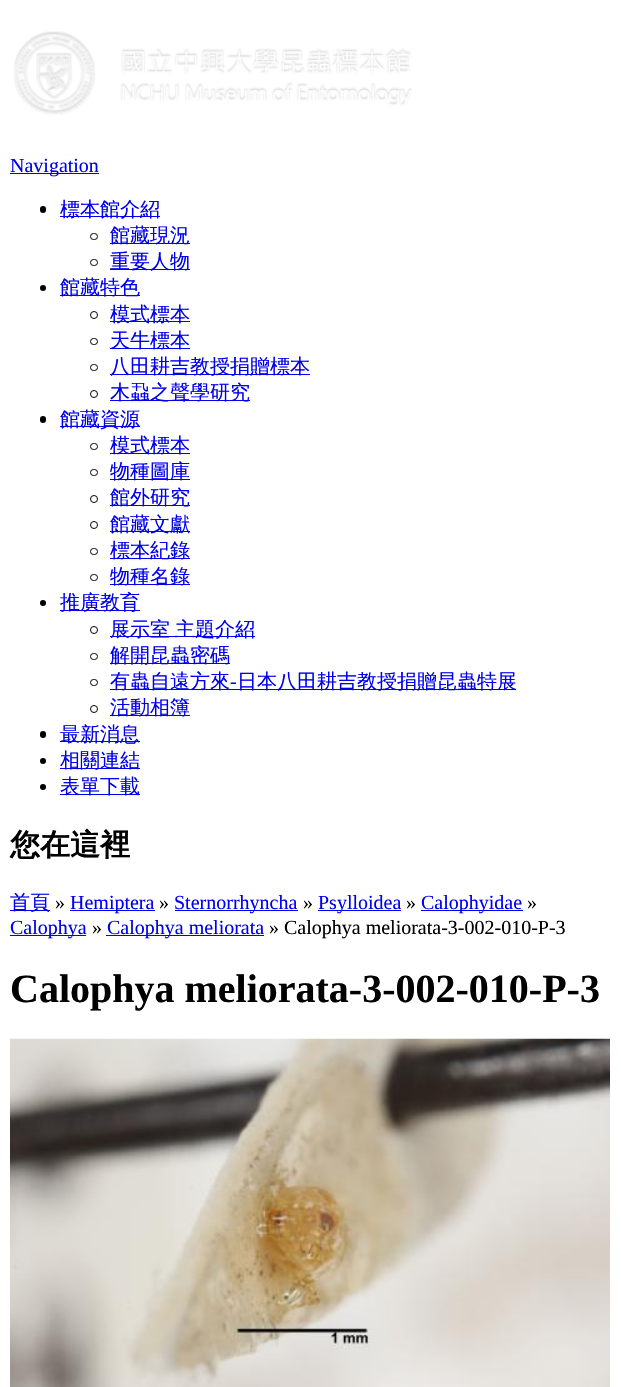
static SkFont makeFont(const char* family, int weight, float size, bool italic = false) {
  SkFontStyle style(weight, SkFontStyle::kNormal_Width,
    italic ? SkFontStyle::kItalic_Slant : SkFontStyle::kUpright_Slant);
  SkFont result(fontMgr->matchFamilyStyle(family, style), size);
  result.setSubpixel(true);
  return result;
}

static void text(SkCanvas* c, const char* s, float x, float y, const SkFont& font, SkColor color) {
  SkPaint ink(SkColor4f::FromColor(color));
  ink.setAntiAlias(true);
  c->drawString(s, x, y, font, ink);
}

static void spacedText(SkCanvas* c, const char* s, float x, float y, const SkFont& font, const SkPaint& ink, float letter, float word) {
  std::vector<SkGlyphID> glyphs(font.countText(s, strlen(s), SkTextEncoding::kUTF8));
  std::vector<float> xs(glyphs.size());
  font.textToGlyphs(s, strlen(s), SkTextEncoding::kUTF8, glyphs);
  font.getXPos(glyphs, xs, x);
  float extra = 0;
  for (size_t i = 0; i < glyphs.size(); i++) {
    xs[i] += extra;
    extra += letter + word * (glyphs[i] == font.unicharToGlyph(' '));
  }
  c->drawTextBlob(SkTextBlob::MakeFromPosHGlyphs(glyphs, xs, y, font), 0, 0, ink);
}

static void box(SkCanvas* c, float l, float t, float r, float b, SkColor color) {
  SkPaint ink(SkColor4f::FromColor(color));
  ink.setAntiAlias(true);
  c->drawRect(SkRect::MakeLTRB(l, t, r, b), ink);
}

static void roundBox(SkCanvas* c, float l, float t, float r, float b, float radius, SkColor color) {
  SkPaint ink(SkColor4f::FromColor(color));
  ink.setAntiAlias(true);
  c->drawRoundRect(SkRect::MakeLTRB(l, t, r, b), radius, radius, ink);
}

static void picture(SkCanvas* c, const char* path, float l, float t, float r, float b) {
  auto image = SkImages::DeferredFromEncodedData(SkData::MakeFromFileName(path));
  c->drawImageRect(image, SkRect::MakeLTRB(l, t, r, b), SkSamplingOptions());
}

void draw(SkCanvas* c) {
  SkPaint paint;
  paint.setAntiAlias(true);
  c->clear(0xffffffff);
  picture(c, "img_01.png", 14, 31, 412, 115);
  box(c, 10, 173, 99, 174, 0xff0000ee);
  SkFont face1 = makeFont("Liberation Serif", 400, 20);
  text(c, "Navigation", 10, 172, face1, 0xff0000ee);
  roundBox(c, 40, 206, 46, 213, 3, 0xff000000);
  box(c, 60, 216, 160, 217, 0xff0000ee);
  SkFont face2 = makeFont("WenQuanYi Zen Hei", 500, 20);
  text(c, "標本館介紹", 60, 216, face2, 0xff0000ee);
  paint.setStyle(SkPaint::kStroke_Style);
  paint.setStrokeWidth(1);
  paint.setColor(0xff000000);
  c->drawRoundRect(SkRect::MakeLTRB(90.5f, 233.5f, 97.5f, 239.5f), 3, 3, paint);
  box(c, 110, 243, 190, 244, 0xff0000ee);
  text(c, "館藏現況", 110, 242, face2, 0xff0000ee);
  c->drawRoundRect(SkRect::MakeLTRB(90.5f, 259.5f, 97.5f, 265.5f), 3, 3, paint);
  box(c, 110, 269, 190, 270, 0xff0000ee);
  text(c, "重要人物", 110, 268, face2, 0xff0000ee);
  paint.setStyle(SkPaint::kFill_Style);
  c->drawCircle(43, 288, 3, paint);
  box(c, 60, 295, 140, 296, 0xff0000ee);
  text(c, "館藏特色", 60, 294, face2, 0xff0000ee);
  paint.setStyle(SkPaint::kStroke_Style);
  c->drawCircle(94, 315, 3.5f, paint);
  box(c, 110, 321, 190, 322, 0xff0000ee);
  text(c, "模式標本", 110, 321, face2, 0xff0000ee);
  c->drawRoundRect(SkRect::MakeLTRB(90.5f, 338.5f, 97.5f, 344.5f), 3, 3, paint);
  box(c, 110, 348, 190, 349, 0xff0000ee);
  text(c, "天牛標本", 110, 347, face2, 0xff0000ee);
  c->drawRoundRect(SkRect::MakeLTRB(90.5f, 364.5f, 97.5f, 370.5f), 3, 3, paint);
  box(c, 110, 374, 310, 375, 0xff0000ee);
  text(c, "八田耕吉教授捐贈標本", 110, 373, face2, 0xff0000ee);
  c->drawCircle(94, 394, 3.5f, paint);
  box(c, 110, 400, 250, 401, 0xff0000ee);
  text(c, "木蝨之聲學研究", 110, 399, face2, 0xff0000ee);
  roundBox(c, 40, 416, 46, 423, 3, 0xff000000);
  box(c, 60, 426, 140, 427, 0xff0000ee);
  text(c, "館藏資源", 60, 426, face2, 0xff0000ee);
  c->drawRoundRect(SkRect::MakeLTRB(90.5f, 443.5f, 97.5f, 449.5f), 3, 3, paint);
  box(c, 110, 453, 190, 454, 0xff0000ee);
  text(c, "模式標本", 110, 452, face2, 0xff0000ee);
  c->drawRoundRect(SkRect::MakeLTRB(90.5f, 469.5f, 97.5f, 475.5f), 3, 3, paint);
  box(c, 110, 479, 190, 480, 0xff0000ee);
  text(c, "物種圖庫", 110, 478, face2, 0xff0000ee);
  c->drawCircle(94, 499, 3.5f, paint);
  box(c, 110, 505, 190, 506, 0xff0000ee);
  text(c, "館外研究", 110, 504, face2, 0xff0000ee);
  c->drawCircle(94, 525, 3.5f, paint);
  box(c, 110, 531, 190, 532, 0xff0000ee);
  text(c, "館藏文獻", 110, 531, face2, 0xff0000ee);
  c->drawRoundRect(SkRect::MakeLTRB(90.5f, 548.5f, 97.5f, 554.5f), 3, 3, paint);
  box(c, 110, 558, 190, 559, 0xff0000ee);
  text(c, "標本紀錄", 110, 557, face2, 0xff0000ee);
  c->drawRoundRect(SkRect::MakeLTRB(90.5f, 574.5f, 97.5f, 580.5f), 3, 3, paint);
  box(c, 110, 584, 190, 585, 0xff0000ee);
  text(c, "物種名錄", 110, 583, face2, 0xff0000ee);
  paint.setStyle(SkPaint::kFill_Style);
  c->drawCircle(43, 603, 3, paint);
  box(c, 60, 610, 140, 611, 0xff0000ee);
  text(c, "推廣教育", 60, 609, face2, 0xff0000ee);
  paint.setStyle(SkPaint::kStroke_Style);
  c->drawCircle(94, 630, 3.5f, paint);
  box(c, 110, 636, 255, 637, 0xff0000ee);
  paint.setStyle(SkPaint::kFill_Style);
  paint.setColor(0xff0000ee);
  spacedText(c, "展示室 主題介紹", 110, 636, face2, paint, 0, -1);
  paint.setStyle(SkPaint::kStroke_Style);
  paint.setColor(0xff000000);
  c->drawRoundRect(SkRect::MakeLTRB(90.5f, 653.5f, 97.5f, 659.5f), 3, 3, paint);
  box(c, 110, 663, 230, 664, 0xff0000ee);
  text(c, "解開昆蟲密碼", 110, 662, face2, 0xff0000ee);
  c->drawRoundRect(SkRect::MakeLTRB(90.5f, 679.5f, 97.5f, 685.5f), 3, 3, paint);
  box(c, 110, 689, 516, 690, 0xff0000ee);
  text(c, "有蟲自遠方來", 110, 688, face2, 0xff0000ee);
  text(c, "-", 230, 688, face1, 0xff0000ee);
  text(c, "日本八田耕吉教授捐贈昆蟲特展", 237, 688, face2, 0xff0000ee);
  c->drawCircle(94, 709, 3.5f, paint);
  box(c, 110, 715, 190, 716, 0xff0000ee);
  text(c, "活動相簿", 110, 714, face2, 0xff0000ee);
  roundBox(c, 40, 731, 46, 738, 3, 0xff000000);
  box(c, 60, 741, 140, 742, 0xff0000ee);
  text(c, "最新消息", 60, 741, face2, 0xff0000ee);
  paint.setStyle(SkPaint::kFill_Style);
  c->drawCircle(43, 761, 3, paint);
  box(c, 60, 768, 140, 769, 0xff0000ee);
  text(c, "相關連結", 60, 767, face2, 0xff0000ee);
  c->drawCircle(43, 787, 3, paint);
  box(c, 60, 794, 140, 795, 0xff0000ee);
  text(c, "表單下載", 60, 793, face2, 0xff0000ee);
  SkFont face3 = makeFont("WenQuanYi Zen Hei", 700, 30);
  text(c, "您在這裡", 10, 855, face3, 0xff000000);
  box(c, 10, 910, 50, 911, 0xff0000ee);
  text(c, "首頁", 10, 909, face2, 0xff0000ee);
  text(c, "»", 55, 909, face1, 0xff000000);
  box(c, 70, 910, 155, 911, 0xff0000ee);
  text(c, "Hemiptera", 70, 909, face1, 0xff0000ee);
  text(c, "»", 159, 909, face1, 0xff000000);
  box(c, 175, 910, 298, 911, 0xff0000ee);
  text(c, "Sternorrhyncha", 174, 909, face1, 0xff0000ee);
  text(c, "»", 303, 909, face1, 0xff000000);
  box(c, 318, 910, 401, 911, 0xff0000ee);
  text(c, "Psylloidea", 318, 909, face1, 0xff0000ee);
  text(c, "»", 406, 909, face1, 0xff000000);
  box(c, 421, 910, 523, 911, 0xff0000ee);
  text(c, "Calophyidae", 421, 909, face1, 0xff0000ee);
  text(c, "»", 527, 909, face1, 0xff000000);
  box(c, 10, 935, 86, 936, 0xff0000ee);
  text(c, "Calophya", 10, 934, face1, 0xff0000ee);
  text(c, "»", 92, 934, face1, 0xff000000);
  box(c, 106, 935, 264, 936, 0xff0000ee);
  text(c, "Calophya meliorata", 107, 934, face1, 0xff0000ee);
  text(c, "» Calophya meliorata-3-002-010-P-3", 269, 934, face1, 0xff000000);
  SkFont face4 = makeFont("Liberation Serif", 700, 40);
  text(c, "Calophya meliorata-3-002-010-P-3", 10, 1002, face4, 0xff000000);
  picture(c, "img_02.png", 10, 1038, 610, 1387);
}
